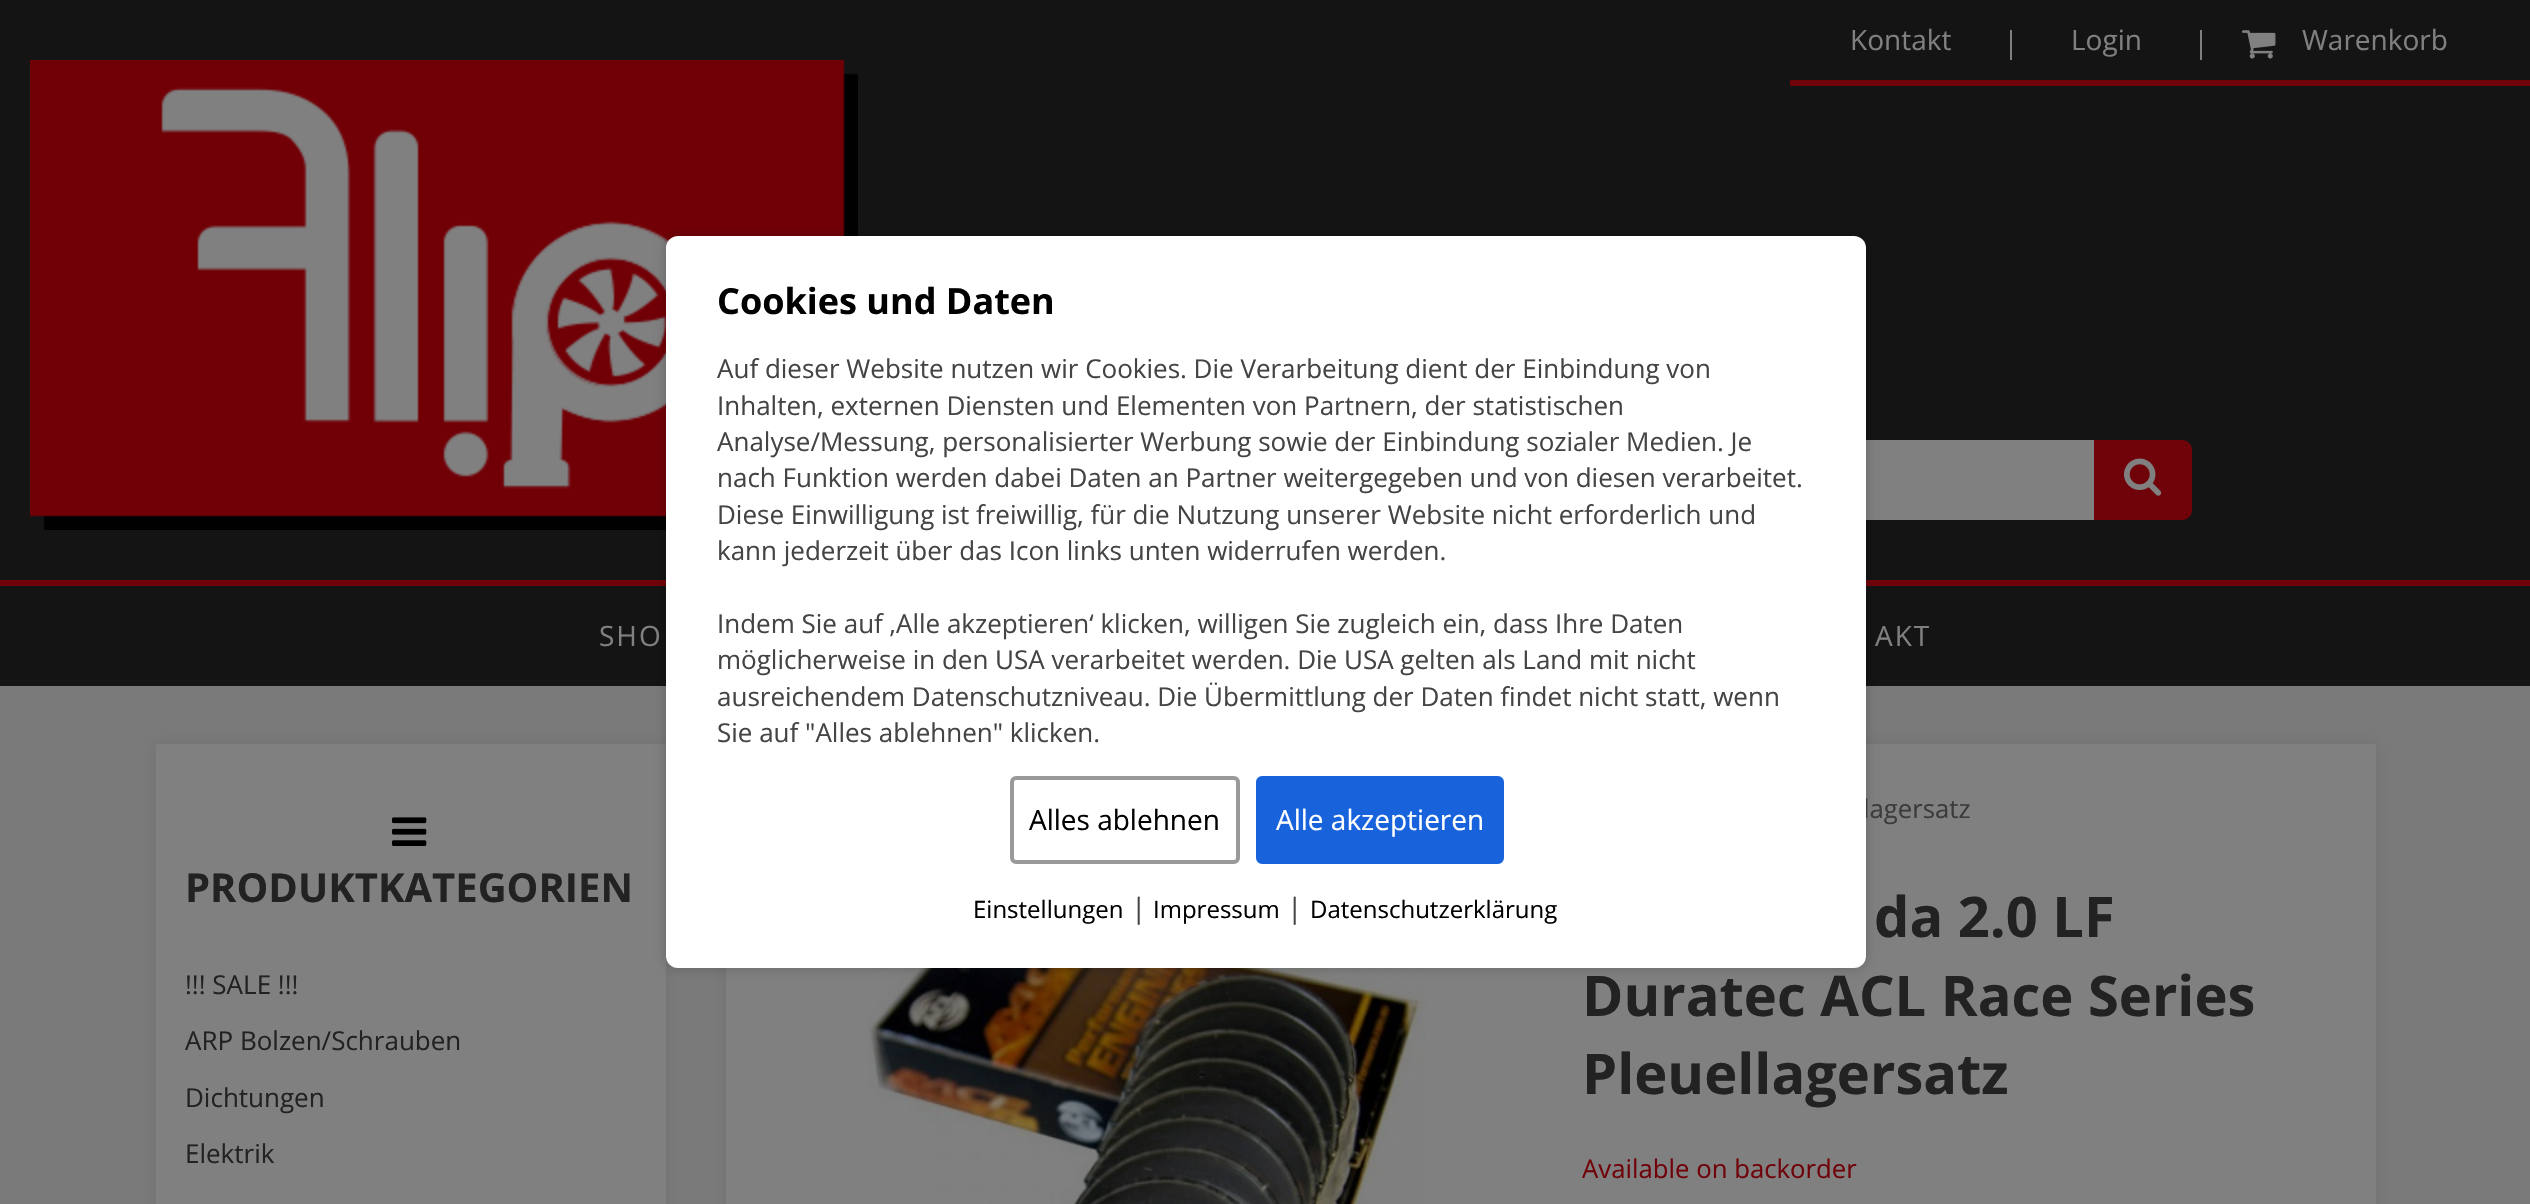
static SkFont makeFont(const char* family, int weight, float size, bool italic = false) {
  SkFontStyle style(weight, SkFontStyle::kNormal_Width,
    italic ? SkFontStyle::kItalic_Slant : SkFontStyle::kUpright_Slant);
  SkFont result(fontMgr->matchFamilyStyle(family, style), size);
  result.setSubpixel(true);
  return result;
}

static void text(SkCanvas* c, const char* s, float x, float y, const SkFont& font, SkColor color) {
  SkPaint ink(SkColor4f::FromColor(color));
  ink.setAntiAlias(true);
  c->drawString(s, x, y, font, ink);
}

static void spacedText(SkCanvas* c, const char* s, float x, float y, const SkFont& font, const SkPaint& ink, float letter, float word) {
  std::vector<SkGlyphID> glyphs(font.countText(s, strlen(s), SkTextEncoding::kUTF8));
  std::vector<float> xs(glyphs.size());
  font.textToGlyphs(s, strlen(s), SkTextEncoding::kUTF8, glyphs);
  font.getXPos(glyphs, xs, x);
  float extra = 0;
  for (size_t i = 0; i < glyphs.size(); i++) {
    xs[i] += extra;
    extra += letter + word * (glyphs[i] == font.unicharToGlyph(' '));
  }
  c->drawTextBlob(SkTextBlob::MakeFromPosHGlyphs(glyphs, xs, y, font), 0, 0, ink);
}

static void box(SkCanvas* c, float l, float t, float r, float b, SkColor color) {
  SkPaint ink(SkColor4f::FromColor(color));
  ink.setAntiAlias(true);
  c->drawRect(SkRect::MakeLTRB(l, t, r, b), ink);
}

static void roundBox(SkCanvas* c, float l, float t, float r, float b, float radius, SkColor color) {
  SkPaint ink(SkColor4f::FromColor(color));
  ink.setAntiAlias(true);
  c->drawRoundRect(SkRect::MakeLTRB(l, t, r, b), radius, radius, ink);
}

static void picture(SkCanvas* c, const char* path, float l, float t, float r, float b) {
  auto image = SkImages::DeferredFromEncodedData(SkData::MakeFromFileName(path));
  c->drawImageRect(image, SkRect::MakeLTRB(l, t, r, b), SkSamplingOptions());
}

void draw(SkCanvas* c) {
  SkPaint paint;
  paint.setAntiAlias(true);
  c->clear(0xff7a7a7a);
  box(c, 0, 0, 2530, 580, 0xff141414);
  box(c, 1790, 80, 2530, 86, 0xff70030a);
  SkFont face1 = makeFont("Open Sans", 400, 28);
  text(c, "Kontakt", 1850, 50, face1, 0xff808080);
  box(c, 2010, 30, 2012, 60, 0xff808080);
  text(c, "Login", 2071, 50, face1, 0xff808080);
  box(c, 2200, 30, 2202, 60, 0xff808080);
  picture(c, "img_01.png", 2242, 30, 2276, 59);
  text(c, "Warenkorb", 2302, 50, face1, 0xff808080);
  picture(c, "img_02.png", 30, 60, 858, 530);
  box(c, 1866, 440, 2094, 520, 0xff808080);
  paint.setColor(0xff70030a);
  c->drawPath(SkPathBuilder().moveTo(2094, 440).lineTo(2182, 440).cubicTo(2187.5f, 440, 2192, 444.5f, 2192, 450).lineTo(2192, 510).cubicTo(2192, 515.5f, 2187.5f, 520, 2182, 520).lineTo(2094, 520).close().detach(), paint);
  picture(c, "img_03.png", 2124, 458, 2162, 496);
  box(c, 0, 586, 2530, 686, 0xff141414);
  box(c, 0, 580, 2530, 586, 0xff70030a);
  paint.setColor(0xff808080);
  spacedText(c, "SHO", 599, 646, face1, paint, 2, 0);
  spacedText(c, "AKT", 1875, 646, face1, paint, 2, 0);
  paint.setColor(0xff707070);
  paint.setMaskFilter(SkMaskFilter::MakeBlur(kNormal_SkBlurStyle, 7));
  c->drawRect(SkRect::MakeLTRB(156, 744, 666, 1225), paint);
  paint.setMaskFilter(nullptr);
  box(c, 156, 744, 666, 1204, 0xff808080);
  paint.setMaskFilter(SkMaskFilter::MakeBlur(kNormal_SkBlurStyle, 7));
  c->drawRect(SkRect::MakeLTRB(726, 744, 2376, 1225), paint);
  paint.setMaskFilter(nullptr);
  box(c, 726, 744, 2376, 1204, 0xff808080);
  picture(c, "img_05.png", 868, 968, 1426, 1204);
  paint.setColor(0x33000000);
  paint.setMaskFilter(SkMaskFilter::MakeBlur(kNormal_SkBlurStyle, 6));
  c->drawRoundRect(SkRect::MakeLTRB(666, 236, 1866, 968), 12, 12, paint);
  paint.setMaskFilter(nullptr);
  SkFont face2 = makeFont("Open Sans", 400, 25.75f);
  text(c, "lagersatz", 1863, 818, face2, 0xff3b3b3b);
  roundBox(c, 666, 236, 1866, 968, 12, 0xffffffff);
  SkFont face3 = makeFont("Open Sans", 700, 36);
  text(c, "Cookies und Daten", 717, 314, face3, 0xff000000);
  SkFont face4 = makeFont("Open Sans", 400, 26);
  text(c, "Auf dieser Website nutzen wir Cookies. Die Verarbeitung dient der Einbindung von", 717, 378, face4, 0xff444444);
  text(c, "Inhalten, externen Diensten und Elementen von Partnern, der statistischen", 717, 415, face4, 0xff444444);
  text(c, "Analyse/Messung, personalisierter Werbung sowie der Einbindung sozialer Medien. Je", 717, 451, face4, 0xff444444);
  text(c, "nach Funktion werden dabei Daten an Partner weitergegeben und von diesen verarbeitet.", 717, 487, face4, 0xff444444);
  text(c, "Diese Einwilligung ist freiwillig, für die Nutzung unserer Website nicht erforderlich und", 717, 524, face4, 0xff444444);
  text(c, "kann jederzeit über das Icon links unten widerrufen werden.", 717, 560, face4, 0xff444444);
  text(c, "Indem Sie auf ‚Alle akzeptieren‘ klicken, willigen Sie zugleich ein, dass Ihre Daten", 717, 633, face4, 0xff444444);
  text(c, "möglicherweise in den USA verarbeitet werden. Die USA gelten als Land mit nicht", 717, 669, face4, 0xff444444);
  text(c, "ausreichendem Datenschutzniveau. Die Übermittlung der Daten findet nicht statt, wenn", 717, 706, face4, 0xff444444);
  text(c, "Sie auf \"Alles ablehnen\" klicken.", 717, 742, face4, 0xff444444);
  paint.setStyle(SkPaint::kStroke_Style);
  paint.setStrokeWidth(4);
  paint.setColor(0xff999999);
  c->drawRoundRect(SkRect::MakeLTRB(1012, 778, 1238, 862), 4, 4, paint);
  text(c, "Alles ablehnen", 1029, 830, face1, 0xff000000);
  paint.setStyle(SkPaint::kFill_Style);
  paint.setColor(0xff1863dc);
  c->drawRoundRect(SkRect::MakeLTRB(1258, 778, 1502, 862), 4, 4, paint);
  paint.setStyle(SkPaint::kStroke_Style);
  c->drawRoundRect(SkRect::MakeLTRB(1258, 778, 1502, 862), 4, 4, paint);
  text(c, "Alle akzeptieren", 1276, 830, face1, 0xffffffff);
  SkFont face5 = makeFont("Open Sans", 400, 24);
  text(c, "Einstellungen", 973, 918, face5, 0xff000000);
  text(c, "|", 1131, 918, face1, 0xff444444);
  text(c, "Impressum", 1153, 918, face5, 0xff000000);
  text(c, "|", 1287, 918, face1, 0xff444444);
  text(c, "Datenschutzerklärung", 1310, 918, face5, 0xff000000);
  picture(c, "img_04.png", 392, 817, 427, 846);
  SkFont face6 = makeFont("Open Sans", 700, 40);
  text(c, "PRODUKTKATEGORIEN", 185, 902, face6, 0xff222222);
  text(c, "!!! SALE !!!", 185, 994, face4, 0xff222222);
  text(c, "ARP Bolzen/Schrauben", 185, 1050, face4, 0xff222222);
  text(c, "Dichtungen", 185, 1107, face4, 0xff222222);
  text(c, "Elektrik", 185, 1163, face4, 0xff222222);
  SkFont face7 = makeFont("Open Sans", 700, 56);
  text(c, "da 2.0 LF", 1874, 937, face7, 0xff222222);
  text(c, "Duratec ACL Race Series", 1582, 1016, face7, 0xff222222);
  text(c, "Pleuellagersatz", 1582, 1094, face7, 0xff222222);
  text(c, "Available on backorder", 1582, 1178, face2, 0xff70030a);
}
